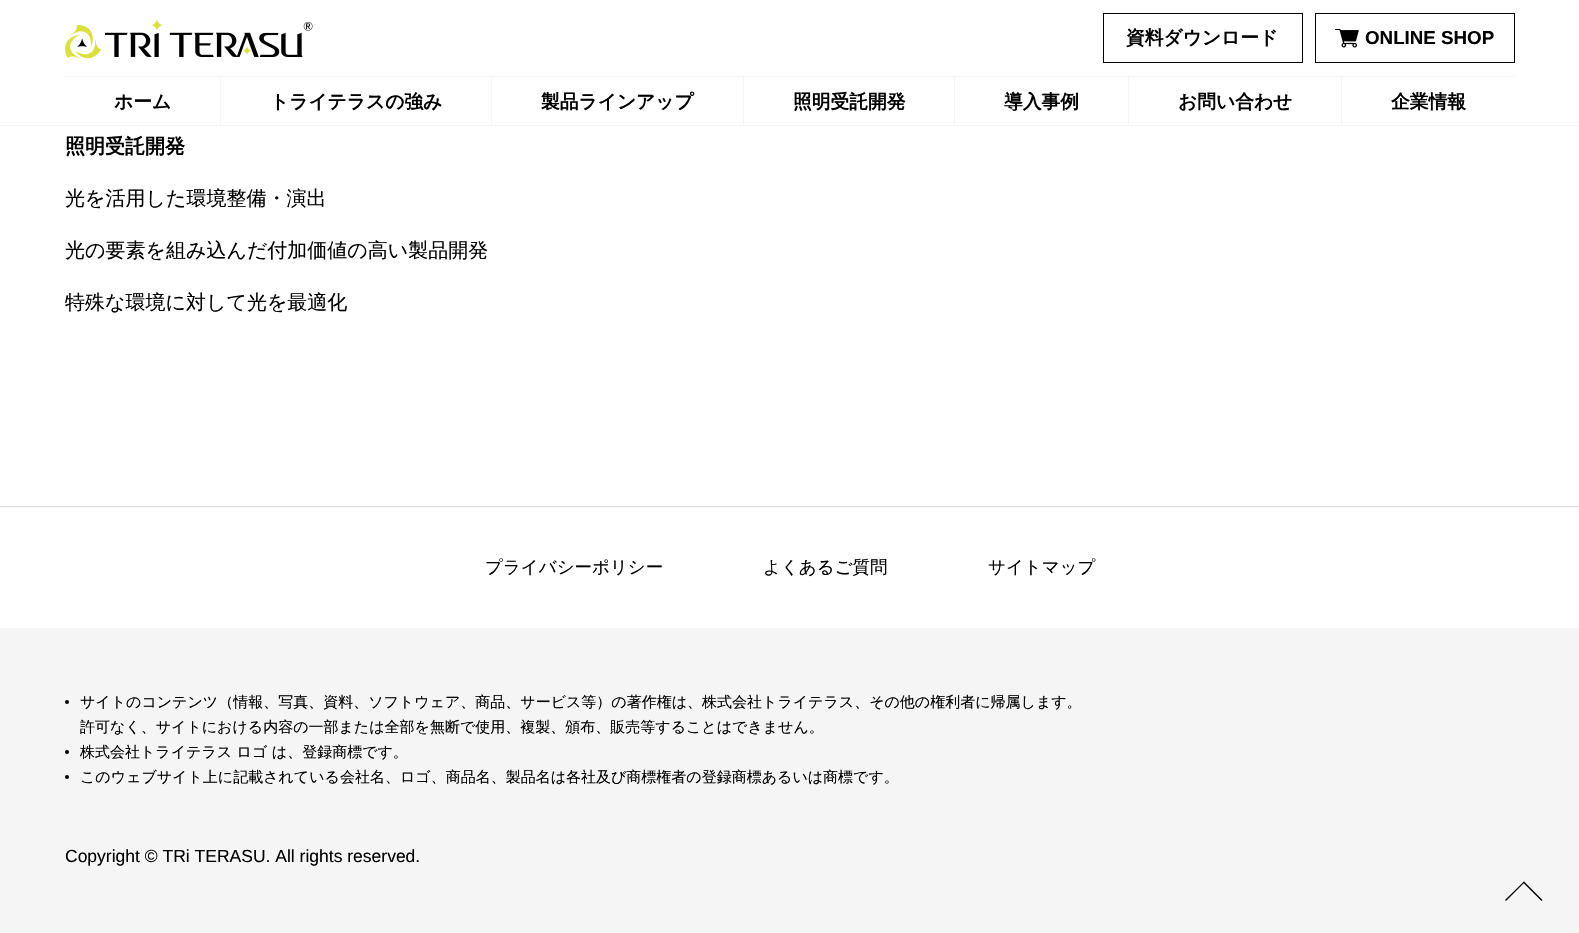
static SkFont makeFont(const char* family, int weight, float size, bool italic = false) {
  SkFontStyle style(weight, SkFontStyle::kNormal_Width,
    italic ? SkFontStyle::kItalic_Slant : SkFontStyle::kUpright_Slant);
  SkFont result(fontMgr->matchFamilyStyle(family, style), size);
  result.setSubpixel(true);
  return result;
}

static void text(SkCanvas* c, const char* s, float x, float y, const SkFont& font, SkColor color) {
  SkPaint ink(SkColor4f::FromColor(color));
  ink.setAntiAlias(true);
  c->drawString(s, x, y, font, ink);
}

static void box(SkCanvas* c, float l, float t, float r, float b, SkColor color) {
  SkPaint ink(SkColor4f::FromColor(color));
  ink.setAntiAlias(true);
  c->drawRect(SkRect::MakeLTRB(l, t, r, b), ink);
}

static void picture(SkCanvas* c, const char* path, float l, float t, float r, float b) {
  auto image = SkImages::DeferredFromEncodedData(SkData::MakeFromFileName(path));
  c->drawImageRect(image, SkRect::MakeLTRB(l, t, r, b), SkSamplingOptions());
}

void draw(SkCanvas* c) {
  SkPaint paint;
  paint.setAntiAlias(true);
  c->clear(0xffffffff);
  picture(c, "img_01.png", 65, 19, 313, 59);
  paint.setStyle(SkPaint::kStroke_Style);
  paint.setStrokeWidth(1);
  paint.setColor(0xff000000);
  c->drawRect(SkRect::MakeLTRB(1103.5f, 13.5f, 1302.5f, 62.5f), paint);
  SkFont face1 = makeFont("WenQuanYi Zen Hei", 700, 18.75f);
  text(c, "資料ダウンロード", 1126, 44, face1, 0xff000000);
  c->drawRect(SkRect::MakeLTRB(1315.5f, 13.5f, 1514.5f, 62.5f), paint);
  picture(c, "img_02.png", 1335, 29, 1359, 48);
  SkFont face2 = makeFont("Liberation Sans", 700, 18.75f);
  text(c, "ONLINE SHOP", 1365, 44, face2, 0xff000000);
  box(c, 65, 76, 1515, 77, 0xfff5f5f5);
  text(c, "ホーム", 114, 108, face1, 0xff000000);
  box(c, 220, 76, 221, 126, 0xfff5f5f5);
  text(c, "トライテラスの強み", 270, 108, face1, 0xff000000);
  box(c, 491, 76, 492, 126, 0xfff5f5f5);
  text(c, "製品ラインアップ", 541, 108, face1, 0xff000000);
  box(c, 743, 76, 744, 126, 0xfff5f5f5);
  text(c, "照明受託開発", 793, 108, face1, 0xff000000);
  box(c, 954, 76, 955, 126, 0xfff5f5f5);
  text(c, "導入事例", 1004, 108, face1, 0xff000000);
  box(c, 1128, 76, 1129, 126, 0xfff5f5f5);
  text(c, "お問い合わせ", 1178, 108, face1, 0xff000000);
  box(c, 1341, 76, 1342, 126, 0xfff5f5f5);
  text(c, "企業情報", 1391, 108, face1, 0xff000000);
  box(c, 0, 125, 1579, 126, 0xfff5f5f5);
  SkFont face3 = makeFont("WenQuanYi Zen Hei", 700, 20);
  text(c, "照明受託開発", 65, 153, face3, 0xff000000);
  SkFont face4 = makeFont("WenQuanYi Zen Hei", 500, 20);
  text(c, "光を活用した環境整備・演出", 65, 205, face4, 0xff000000);
  text(c, "光の要素を組み込んだ付加価値の高い製品開発", 65, 257, face4, 0xff000000);
  text(c, "特殊な環境に対して光を最適化", 65, 309, face4, 0xff000000);
  box(c, 0, 628, 1579, 933, 0xfff5f5f5);
  box(c, 0, 506, 1579, 507, 0xffd8d8d8);
  SkFont face5 = makeFont("WenQuanYi Zen Hei", 500, 17.5f);
  text(c, "プライバシーポリシー", 485, 573, face5, 0xff000000);
  text(c, "よくあるご質問", 763, 573, face5, 0xff000000);
  text(c, "サイトマップ", 988, 573, face5, 0xff000000);
  paint.setStyle(SkPaint::kFill_Style);
  c->drawCircle(67, 702, 2, paint);
  SkFont face6 = makeFont("WenQuanYi Zen Hei", 500, 15);
  text(c, "サイトのコンテンツ（情報、写真、資料、ソフトウェア、商品、サービス等）の著作権は、株式会社トライテラス、その他の権利者に帰属します。", 80, 707, face6, 0xff000000);
  text(c, "許可なく、サイトにおける内容の一部または全部を無断で使用、複製、頒布、販売等することはできません。", 80, 732, face6, 0xff000000);
  c->drawCircle(67, 752, 2, paint);
  text(c, "株式会社トライテラス ロゴ は、登録商標です。", 80, 757, face6, 0xff000000);
  c->drawCircle(67, 777, 2, paint);
  text(c, "このウェブサイト上に記載されている会社名、ロゴ、商品名、製品名は各社及び商標権者の登録商標あるいは商標です。", 80, 782, face6, 0xff000000);
  SkFont face7 = makeFont("Liberation Sans", 400, 17.5f);
  text(c, "Copyright © TRi TERASU. All rights reserved.", 65, 862, face7, 0xff000000);
  c->drawPath(SkPathBuilder().moveTo(1506, 901).lineTo(1505, 900).lineTo(1524, 881.5f).lineTo(1524.5f, 882.5f).close().detach(), paint);
  c->drawPath(SkPathBuilder().moveTo(1541.5f, 901).lineTo(1523, 882.5f).lineTo(1524, 881.5f).lineTo(1542.5f, 900).close().detach(), paint);
}
